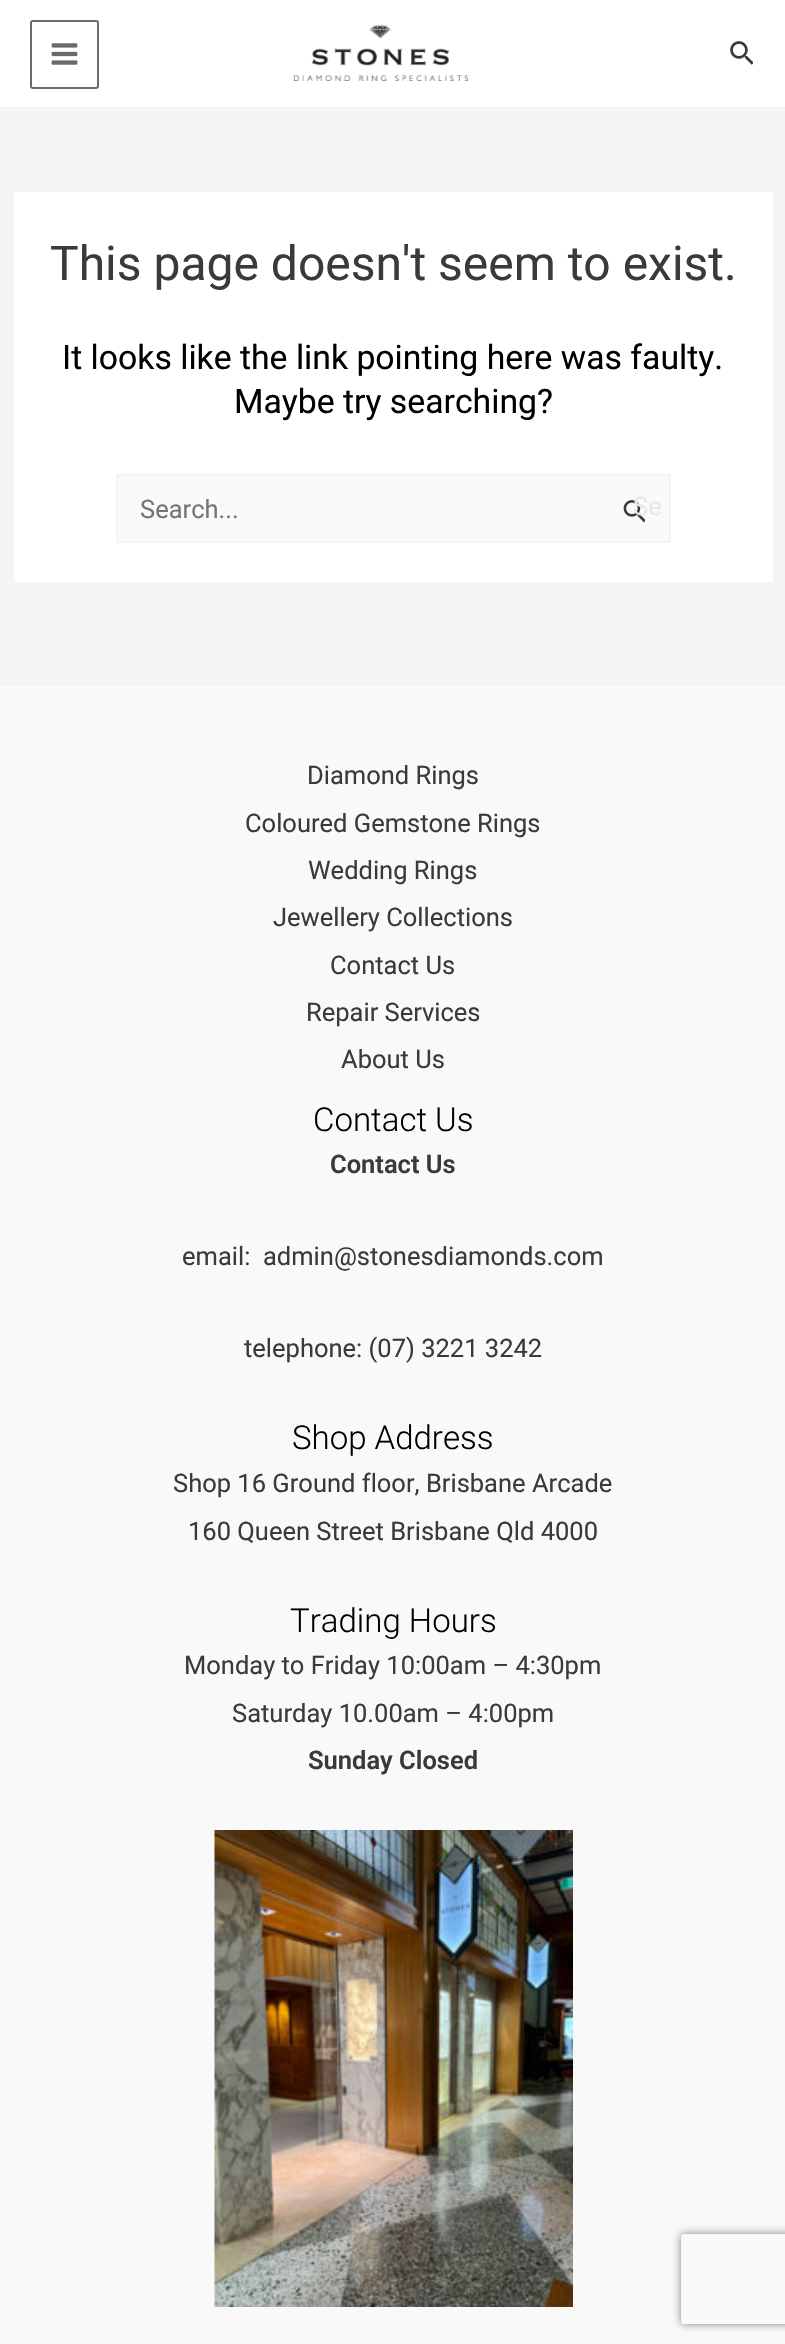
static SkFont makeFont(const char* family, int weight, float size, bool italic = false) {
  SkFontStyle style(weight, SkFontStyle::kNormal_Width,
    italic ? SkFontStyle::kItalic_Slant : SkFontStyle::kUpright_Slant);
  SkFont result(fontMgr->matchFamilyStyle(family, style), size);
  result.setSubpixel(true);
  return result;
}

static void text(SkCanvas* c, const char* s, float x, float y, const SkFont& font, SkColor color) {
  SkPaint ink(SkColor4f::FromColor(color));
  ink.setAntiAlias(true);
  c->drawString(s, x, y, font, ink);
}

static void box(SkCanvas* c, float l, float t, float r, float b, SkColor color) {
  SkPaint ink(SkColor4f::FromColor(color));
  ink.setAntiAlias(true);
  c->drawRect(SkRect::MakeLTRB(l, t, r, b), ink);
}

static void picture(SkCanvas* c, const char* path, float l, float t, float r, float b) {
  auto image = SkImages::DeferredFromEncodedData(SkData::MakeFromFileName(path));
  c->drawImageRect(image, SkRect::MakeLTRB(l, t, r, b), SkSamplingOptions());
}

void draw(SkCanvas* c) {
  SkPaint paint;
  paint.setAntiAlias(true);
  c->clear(0xfff5f5f5);
  box(c, 0, 0, 785, 107, 0xffffffff);
  box(c, 0, 107, 785, 109, 0xfff2f5f7);
  paint.setStyle(SkPaint::kStroke_Style);
  paint.setStrokeWidth(2);
  paint.setColor(0xff6d6969);
  c->drawRoundRect(SkRect::MakeLTRB(31, 21, 98, 88), 2, 2, paint);
  picture(c, "img_01.png", 51, 43, 78, 65);
  picture(c, "img_02.png", 293, 25, 468, 81);
  picture(c, "img_03.png", 730, 41, 753, 65);
  box(c, 14, 192, 773, 582, 0xffffffff);
  SkFont face1 = makeFont("Roboto", 400, 48);
  text(c, "This page doesn't seem to exist.", 50, 280, face1, 0xff3a3a3a);
  SkFont face2 = makeFont("Roboto", 400, 33.75f);
  text(c, "It looks like the link pointing here was faulty.", 62, 369, face2, 0xff000000);
  text(c, "Maybe try searching?", 234, 413, face2, 0xff000000);
  paint.setStyle(SkPaint::kFill_Style);
  paint.setColor(0xfffafafa);
  c->drawRoundRect(SkRect::MakeLTRB(117, 475, 670, 542), 2, 2, paint);
  paint.setStyle(SkPaint::kStroke_Style);
  paint.setColor(0xfff2f5f7);
  c->drawRoundRect(SkRect::MakeLTRB(117, 475, 670, 542), 2, 2, paint);
  SkFont face3 = makeFont("Roboto", 400, 25.5f);
  text(c, "Search...", 140, 518, face3, 0xff757575);
  picture(c, "img_04.png", 623, 500, 645, 523);
  text(c, "Se", 633, 515, face3, 0xffe8e8e8);
  box(c, 0, 686, 785, 2344, 0xfff9f9f9);
  box(c, 0, 684, 785, 686, 0xfff2f5f7);
  text(c, "Diamond Rings", 307, 784, face3, 0xff3a3a3a);
  text(c, "Coloured Gemstone Rings", 245, 832, face3, 0xff3a3a3a);
  text(c, "Wedding Rings", 308, 879, face3, 0xff3a3a3a);
  text(c, "Jewellery Collections", 273, 926, face3, 0xff3a3a3a);
  text(c, "Contact Us", 330, 974, face3, 0xff3a3a3a);
  text(c, "Repair Services", 306, 1021, face3, 0xff3a3a3a);
  text(c, "About Us", 341, 1068, face3, 0xff3a3a3a);
  SkFont face4 = makeFont("Roboto", 300, 33);
  text(c, "Contact Us", 313, 1131, face4, 0xff000000);
  SkFont face5 = makeFont("Roboto", 600, 25.5f);
  text(c, "Contact Us", 330, 1173, face5, 0xff3a3a3a);
  text(c, "email:", 182, 1265, face3, 0xff3a3a3a);
  text(c, "admin@stonesdiamonds.com", 263, 1265, face3, 0xff3a3a3a);
  text(c, "telephone: (07) 3221 3242", 244, 1357, face3, 0xff3a3a3a);
  text(c, "Shop Address", 292, 1449, face4, 0xff000000);
  text(c, "Shop 16 Ground floor, Brisbane Arcade", 173, 1492, face3, 0xff3a3a3a);
  text(c, "160 Queen Street Brisbane Qld 4000", 188, 1540, face3, 0xff3a3a3a);
  text(c, "Trading Hours", 290, 1632, face4, 0xff000000);
  text(c, "Monday to Friday 10:00am – 4:30pm", 184, 1674, face3, 0xff3a3a3a);
  text(c, "Saturday 10.00am – 4:00pm", 232, 1722, face3, 0xff3a3a3a);
  text(c, "Sunday Closed", 308, 1769, face5, 0xff3a3a3a);
  picture(c, "img_05.png", 214, 1830, 573, 2307);
  c->save();
  c->clipPath(SkPathBuilder(SkPathFillType::kEvenOdd).moveTo(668, 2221).lineTo(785, 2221).lineTo(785, 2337).lineTo(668, 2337).close().moveTo(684, 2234).lineTo(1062, 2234).cubicTo(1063.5f, 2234, 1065, 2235.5f, 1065, 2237).lineTo(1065, 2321).cubicTo(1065, 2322.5f, 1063.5f, 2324, 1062, 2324).lineTo(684, 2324).cubicTo(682.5f, 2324, 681, 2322.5f, 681, 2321).lineTo(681, 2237).cubicTo(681, 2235.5f, 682.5f, 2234, 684, 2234).close().detach(), true);
  paint.setStyle(SkPaint::kFill_Style);
  paint.setColor(0xff808080);
  paint.setMaskFilter(SkMaskFilter::MakeBlur(kNormal_SkBlurStyle, 4));
  c->drawRoundRect(SkRect::MakeLTRB(681, 2234, 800, 2324), 3, 3, paint);
  paint.setMaskFilter(nullptr);
  c->restore();
}
